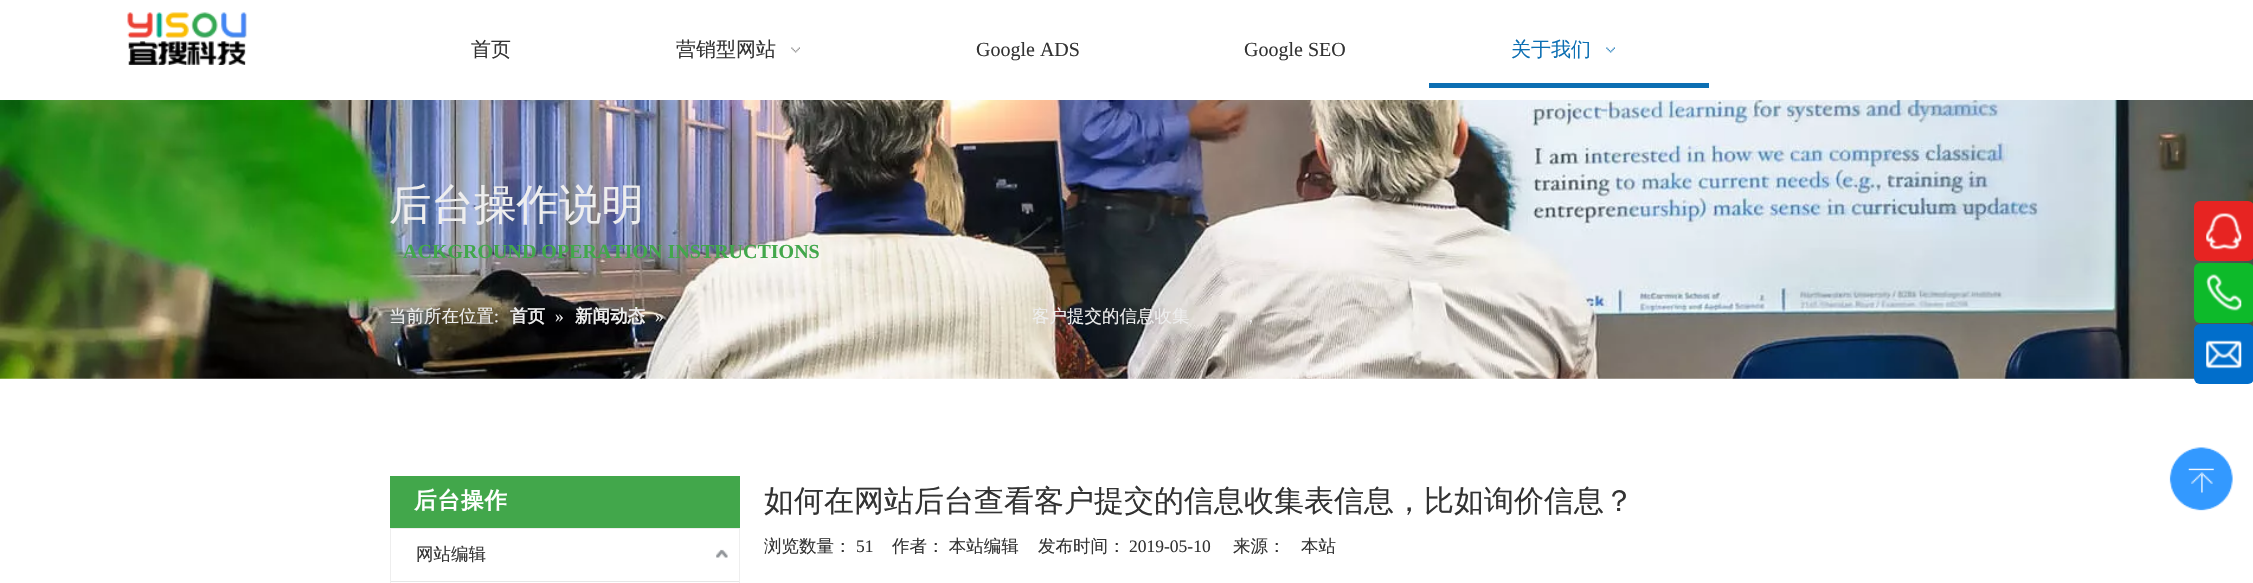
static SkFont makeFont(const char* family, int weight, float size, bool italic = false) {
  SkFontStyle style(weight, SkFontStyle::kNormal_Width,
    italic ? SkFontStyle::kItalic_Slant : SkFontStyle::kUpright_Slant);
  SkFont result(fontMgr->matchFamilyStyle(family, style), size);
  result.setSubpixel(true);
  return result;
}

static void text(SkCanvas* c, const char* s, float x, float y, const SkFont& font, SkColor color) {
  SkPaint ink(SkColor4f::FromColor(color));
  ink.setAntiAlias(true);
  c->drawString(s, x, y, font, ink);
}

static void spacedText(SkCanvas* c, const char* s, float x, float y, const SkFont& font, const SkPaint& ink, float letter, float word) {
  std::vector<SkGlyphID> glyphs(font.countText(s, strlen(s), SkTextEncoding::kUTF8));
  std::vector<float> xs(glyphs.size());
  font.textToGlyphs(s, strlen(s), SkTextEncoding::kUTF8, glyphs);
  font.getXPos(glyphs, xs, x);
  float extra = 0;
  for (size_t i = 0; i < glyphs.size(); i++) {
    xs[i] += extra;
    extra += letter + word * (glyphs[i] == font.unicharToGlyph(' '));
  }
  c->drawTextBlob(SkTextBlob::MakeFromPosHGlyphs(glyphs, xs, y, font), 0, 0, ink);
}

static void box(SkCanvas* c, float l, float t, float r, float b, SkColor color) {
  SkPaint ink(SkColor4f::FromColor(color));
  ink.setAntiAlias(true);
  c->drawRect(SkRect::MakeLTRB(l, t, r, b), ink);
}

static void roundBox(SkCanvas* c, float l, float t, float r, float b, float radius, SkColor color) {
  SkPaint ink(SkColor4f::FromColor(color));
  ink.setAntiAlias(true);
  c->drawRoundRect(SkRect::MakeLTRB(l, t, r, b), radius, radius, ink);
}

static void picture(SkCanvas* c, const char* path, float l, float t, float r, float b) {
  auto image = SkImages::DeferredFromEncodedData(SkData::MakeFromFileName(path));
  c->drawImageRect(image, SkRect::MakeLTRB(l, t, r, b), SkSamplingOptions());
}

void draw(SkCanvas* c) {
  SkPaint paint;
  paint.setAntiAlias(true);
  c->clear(0xffffffff);
  picture(c, "img_01.png", 127, 12, 247, 65);
  SkFont face1 = makeFont("WenQuanYi Zen Hei", 500, 20);
  text(c, "首页", 471, 56, face1, 0xff333333);
  text(c, "营销型网站", 676, 56, face1, 0xff333333);
  picture(c, "img_02.png", 791, 47, 800, 53);
  SkFont face2 = makeFont("Liberation Serif", 400, 20);
  text(c, "Google ADS", 976, 56, face2, 0xff333333);
  text(c, "Google SEO", 1244, 56, face2, 0xff333333);
  box(c, 1429, 83, 1709, 88, 0xff0c6fb3);
  text(c, "关于我们", 1511, 56, face1, 0xff0c6fb3);
  picture(c, "img_03.png", 1606, 47, 1615, 53);
  picture(c, "img_04.png", 0, 100, 2253, 379);
  SkFont face3 = makeFont("WenQuanYi Zen Hei", 500, 42.5f);
  text(c, "后台操作说明", 389, 219, face3, 0xffeeeeee);
  SkFont face4 = makeFont("Liberation Serif", 700, 20);
  text(c, "ACKGROUND OPERATION INSTRUCTIONS", 403, 258, face4, 0xff42a74b);
  SkFont face5 = makeFont("WenQuanYi Zen Hei", 500, 17.5f);
  text(c, "当前所在位置", 389, 322, face5, 0xffeeeeee);
  SkFont face6 = makeFont("Liberation Serif", 400, 17.5f);
  text(c, ":", 494, 322, face6, 0xffeeeeee);
  SkFont face7 = makeFont("WenQuanYi Zen Hei", 700, 17.5f);
  text(c, "首页", 510, 322, face7, 0xffeeeeee);
  text(c, "»", 555, 322, face6, 0xffeeeeee);
  text(c, "新闻动态", 575, 322, face7, 0xffeeeeee);
  text(c, "»", 655, 322, face6, 0xffeeeeee);
  text(c, "客户提交的信息收集", 1032, 322, face5, 0xffeeeeee);
  text(c, "，", 1242, 322, face5, 0xffeeeeee);
  box(c, 390, 476, 740, 528, 0xff42a74b);
  SkFont face8 = makeFont("WenQuanYi Zen Hei", 700, 22.5f);
  paint.setColor(0xffffffff);
  spacedText(c, "后台操作", 414, 508, face8, paint, 1, 0);
  paint.setStyle(SkPaint::kStroke_Style);
  paint.setStrokeWidth(1);
  paint.setColor(0xffeeeeee);
  c->drawRect(SkRect::MakeLTRB(390.5f, 528.5f, 739.5f, 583.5f), paint);
  box(c, 391, 581, 739, 582, 0xffe7e7e7);
  text(c, "网站编辑", 416, 560, face5, 0xff333333);
  picture(c, "img_05.png", 716, 549, 728, 558);
  SkFont face9 = makeFont("WenQuanYi Zen Hei", 500, 30);
  text(c, "如何在网站后台查看客户提交的信息收集表信息，比如询价信息？", 764, 511, face9, 0xff333333);
  text(c, "浏览数量：", 764, 552, face5, 0xff333333);
  text(c, "51", 856, 552, face6, 0xff333333);
  paint.setStyle(SkPaint::kFill_Style);
  paint.setColor(0xff333333);
  spacedText(c, "作者： 本站编辑", 892, 552, face5, paint, 0, -1);
  text(c, "发布时间：", 1038, 552, face5, 0xff333333);
  text(c, "2019-05-10", 1129, 552, face6, 0xff333333);
  text(c, "来源：", 1233, 552, face5, 0xff333333);
  text(c, "本站", 1301, 552, face5, 0xff333333);
  roundBox(c, 2194, 201, 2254, 261, 6, 0xffe72422);
  picture(c, "img_06.png", 2206, 213, 2242, 250);
  roundBox(c, 2194, 263, 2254, 323, 6, 0xff0dba2a);
  picture(c, "img_07.png", 2206, 274, 2242, 311);
  roundBox(c, 2194, 324, 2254, 384, 6, 0xff016ecb);
  picture(c, "img_08.png", 2206, 340, 2242, 369);
  picture(c, "img_09.png", 2169, 447, 2233, 511);
}
